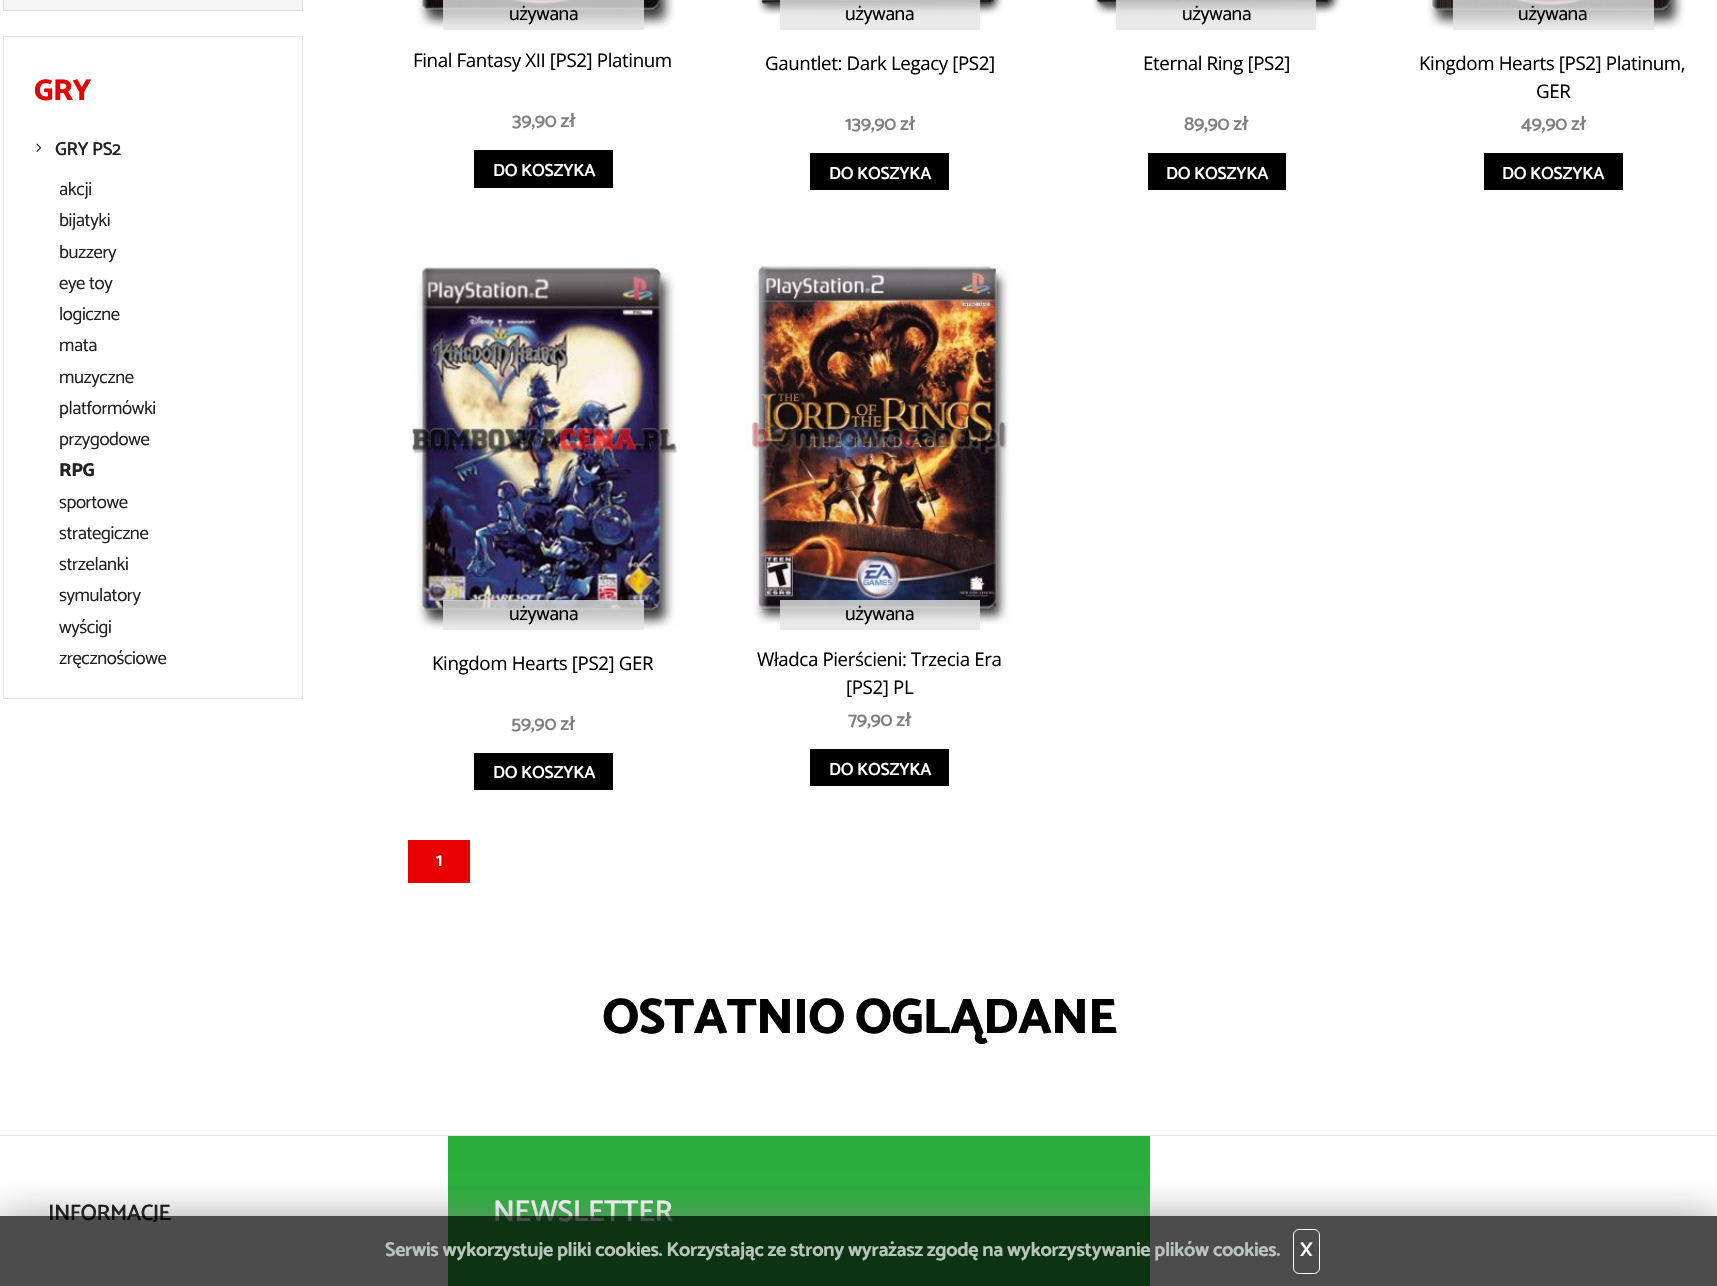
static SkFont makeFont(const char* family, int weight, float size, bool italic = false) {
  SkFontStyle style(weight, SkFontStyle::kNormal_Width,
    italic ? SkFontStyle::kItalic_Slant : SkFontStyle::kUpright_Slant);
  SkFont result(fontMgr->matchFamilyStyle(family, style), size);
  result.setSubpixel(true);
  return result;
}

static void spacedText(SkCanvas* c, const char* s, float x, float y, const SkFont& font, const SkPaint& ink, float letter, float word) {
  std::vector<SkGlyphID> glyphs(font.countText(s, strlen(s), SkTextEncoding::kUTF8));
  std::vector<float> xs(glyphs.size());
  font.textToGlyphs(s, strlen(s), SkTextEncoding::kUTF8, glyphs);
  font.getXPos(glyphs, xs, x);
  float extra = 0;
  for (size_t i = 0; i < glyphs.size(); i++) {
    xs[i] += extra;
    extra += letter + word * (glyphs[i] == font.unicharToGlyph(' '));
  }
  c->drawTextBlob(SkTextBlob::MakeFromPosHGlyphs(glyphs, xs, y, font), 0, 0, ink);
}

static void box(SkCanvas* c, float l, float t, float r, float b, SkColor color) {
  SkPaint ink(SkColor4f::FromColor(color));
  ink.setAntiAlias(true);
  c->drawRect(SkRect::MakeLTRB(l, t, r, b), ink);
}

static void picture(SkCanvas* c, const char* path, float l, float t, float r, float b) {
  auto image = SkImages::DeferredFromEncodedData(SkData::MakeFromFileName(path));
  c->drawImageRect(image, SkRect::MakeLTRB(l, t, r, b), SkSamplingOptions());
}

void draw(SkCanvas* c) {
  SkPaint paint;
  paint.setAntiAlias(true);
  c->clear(0xffffffff);
  paint.setColor(0xfff5f5f5);
  c->drawRect(SkRect::MakeLTRB(3.5f, -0.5f, 302.5f, 10.5f), paint);
  paint.setStyle(SkPaint::kStroke_Style);
  paint.setStrokeWidth(1);
  paint.setColor(0xffdddddd);
  c->drawRect(SkRect::MakeLTRB(3.5f, -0.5f, 302.5f, 10.5f), paint);
  paint.setColor(0xffe6e6e6);
  c->drawRect(SkRect::MakeLTRB(3.5f, 36.5f, 302.5f, 698.5f), paint);
  SkFont face1 = makeFont("Catamaran", 800, 30);
  paint.setStyle(SkPaint::kFill_Style);
  paint.setColor(0xffe70000);
  spacedText(c, "GRY", 34, 100, face1, paint, -0.5f, 0);
  picture(c, "img_01.png", 36, 143, 42, 152);
  SkFont face2 = makeFont("Catamaran", 600, 18.75f);
  paint.setColor(0xff222222);
  spacedText(c, "GRY PS2", 55, 155, face2, paint, -0.4f, 0);
  SkFont face3 = makeFont("Catamaran", 400, 18.75f);
  spacedText(c, "akcji", 59, 195, face3, paint, -0.4f, 0);
  spacedText(c, "bijatyki", 59, 226, face3, paint, -0.4f, 0);
  spacedText(c, "buzzery", 59, 258, face3, paint, -0.4f, 0);
  spacedText(c, "eye toy", 59, 289, face3, paint, -0.4f, 0);
  spacedText(c, "logiczne", 59, 320, face3, paint, -0.4f, 0);
  spacedText(c, "mata", 59, 351, face3, paint, -0.4f, 0);
  spacedText(c, "muzyczne", 59, 383, face3, paint, -0.4f, 0);
  spacedText(c, "platformówki", 59, 414, face3, paint, -0.4f, 0);
  spacedText(c, "przygodowe", 59, 445, face3, paint, -0.4f, 0);
  SkFont face4 = makeFont("Catamaran", 800, 18.75f);
  spacedText(c, "RPG", 59, 476, face4, paint, -0.4f, 0);
  spacedText(c, "sportowe", 59, 508, face3, paint, -0.4f, 0);
  spacedText(c, "strategiczne", 59, 539, face3, paint, -0.4f, 0);
  spacedText(c, "strzelanki", 59, 570, face3, paint, -0.4f, 0);
  spacedText(c, "symulatory", 59, 601, face3, paint, -0.4f, 0);
  spacedText(c, "wyścigi", 59, 633, face3, paint, -0.4f, 0);
  spacedText(c, "zręcznościowe", 59, 664, face3, paint, -0.4f, 0);
  picture(c, "img_02.png", 417, 0, 675, 29);
  box(c, 443, 0, 644, 30, 0xcce3e3e3);
  SkFont face5 = makeFont("Catamaran", 400, 20);
  paint.setColor(0xff000000);
  spacedText(c, "używana", 509, 20, face5, paint, -0.4f, 0);
  SkFont face6 = makeFont("Open Sans", 400, 18.75f);
  spacedText(c, "Final Fantasy XII [PS2] Platinum", 413, 67, face6, paint, -0.4f, 0);
  SkFont face7 = makeFont("Catamaran", 600, 20);
  paint.setColor(0xff808080);
  spacedText(c, "39,90 zł", 512, 127, face7, paint, -0.4f, 0);
  box(c, 474, 150, 613, 188, 0xff000000);
  SkFont face8 = makeFont("Catamaran", 600, 17.5f);
  paint.setColor(0xffffffff);
  spacedText(c, "DO KOSZYKA", 493, 176, face8, paint, -0.25f, 0);
  picture(c, "img_03.png", 755, 0, 1004, 16);
  box(c, 780, 0, 980, 30, 0xcce3e3e3);
  paint.setColor(0xff000000);
  spacedText(c, "używana", 845, 20, face5, paint, -0.4f, 0);
  spacedText(c, "Gauntlet: Dark Legacy [PS2]", 765, 70, face6, paint, -0.4f, 0);
  paint.setColor(0xff808080);
  spacedText(c, "139,90 zł", 845, 130, face7, paint, -0.4f, 0);
  box(c, 810, 153, 949, 190, 0xff000000);
  paint.setColor(0xffffffff);
  spacedText(c, "DO KOSZYKA", 829, 179, face8, paint, -0.25f, 0);
  picture(c, "img_04.png", 1092, 0, 1341, 16);
  box(c, 1116, 0, 1316, 30, 0xcce3e3e3);
  paint.setColor(0xff000000);
  spacedText(c, "używana", 1182, 20, face5, paint, -0.4f, 0);
  spacedText(c, "Eternal Ring [PS2]", 1143, 70, face6, paint, -0.4f, 0);
  paint.setColor(0xff808080);
  spacedText(c, "89,90 zł", 1184, 130, face7, paint, -0.4f, 0);
  box(c, 1148, 153, 1286, 190, 0xff000000);
  paint.setColor(0xffffffff);
  spacedText(c, "DO KOSZYKA", 1166, 179, face8, paint, -0.25f, 0);
  picture(c, "img_05.png", 1427, 0, 1685, 30);
  box(c, 1453, 0, 1654, 30, 0xcce3e3e3);
  paint.setColor(0xff000000);
  spacedText(c, "używana", 1518, 20, face5, paint, -0.4f, 0);
  spacedText(c, "Kingdom Hearts [PS2] Platinum,", 1419, 70, face6, paint, -0.4f, 0);
  spacedText(c, "GER", 1536, 98, face6, paint, -0.4f, 0);
  paint.setColor(0xff808080);
  spacedText(c, "49,90 zł", 1521, 130, face7, paint, -0.4f, 0);
  box(c, 1484, 153, 1623, 190, 0xff000000);
  paint.setColor(0xffffffff);
  spacedText(c, "DO KOSZYKA", 1502, 179, face8, paint, -0.25f, 0);
  picture(c, "img_06.png", 409, 263, 680, 630);
  box(c, 443, 600, 644, 630, 0xcce3e3e3);
  paint.setColor(0xff000000);
  spacedText(c, "używana", 509, 620, face5, paint, -0.4f, 0);
  spacedText(c, "Kingdom Hearts [PS2] GER", 432, 670, face6, paint, -0.4f, 0);
  paint.setColor(0xff808080);
  spacedText(c, "59,90 zł", 511, 730, face7, paint, -0.4f, 0);
  box(c, 474, 753, 613, 790, 0xff000000);
  paint.setColor(0xffffffff);
  spacedText(c, "DO KOSZYKA", 493, 778, face8, paint, -0.25f, 0);
  picture(c, "img_07.png", 745, 263, 1010, 624);
  box(c, 780, 600, 980, 630, 0xcce3e3e3);
  paint.setColor(0xff000000);
  spacedText(c, "używana", 845, 620, face5, paint, -0.4f, 0);
  spacedText(c, "Władca Pierścieni: Trzecia Era", 757, 666, face6, paint, -0.4f, 0);
  spacedText(c, "[PS2] PL", 846, 694, face6, paint, -0.4f, 0);
  paint.setColor(0xff808080);
  spacedText(c, "79,90 zł", 848, 726, face7, paint, -0.4f, 0);
  box(c, 810, 749, 949, 786, 0xff000000);
  paint.setColor(0xffffffff);
  spacedText(c, "DO KOSZYKA", 829, 775, face8, paint, -0.25f, 0);
  box(c, 408, 840, 470, 883, 0xffe70000);
  spacedText(c, "1", 436, 866, face2, paint, -0.4f, 0);
  box(c, 0, 1135, 1717, 1136, 0xffe6e6e6);
  SkFont face9 = makeFont("Catamaran", 800, 50);
  paint.setColor(0xff000000);
  spacedText(c, "OSTATNIO OGLĄDANE", 602, 1033, face9, paint, -1, 0);
  SkFont face10 = makeFont("Catamaran", 600, 22.5f);
  spacedText(c, "INFORMACJE", 48, 1220, face10, paint, -0.5f, 0);
  box(c, 448, 1136, 1150, 1286, 0xff29ae3b);
  SkFont face11 = makeFont("Catamaran", 600, 30);
  paint.setColor(0xffffffff);
  spacedText(c, "NEWSLETTER", 493, 1221, face11, paint, -0.5f, 0);
  c->save();
  c->clipPath(SkPathBuilder(SkPathFillType::kEvenOdd).moveTo(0, 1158).lineTo(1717, 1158).lineTo(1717, 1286).lineTo(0, 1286).close().moveTo(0, 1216).lineTo(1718, 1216).lineTo(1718, 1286).lineTo(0, 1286).close().detach(), true);
  paint.setColor(0xb3808080);
  paint.setMaskFilter(SkMaskFilter::MakeBlur(kNormal_SkBlurStyle, 19));
  c->drawRect(SkRect::MakeLTRB(0, 1216, 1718, 1286), paint);
  paint.setMaskFilter(nullptr);
  c->restore();
  box(c, 0, 1216, 1717, 1286, 0xb3000000);
  SkFont face12 = makeFont("Catamaran", 700, 20);
  paint.setColor(0xffbac4bc);
  spacedText(c, "Serwis wykorzystuje pliki cookies. Korzystając ze strony wyrażasz zgodę na wykorzystywanie plików cookies.", 385, 1256, face12, paint, -0.4f, 0);
  paint.setStyle(SkPaint::kStroke_Style);
  paint.setColor(0xffffffff);
  c->drawRoundRect(SkRect::MakeLTRB(1293.5f, 1229.5f, 1319.5f, 1273.5f), 5.5f, 5.5f, paint);
  paint.setStyle(SkPaint::kFill_Style);
  spacedText(c, "X", 1300, 1256, face12, paint, -0.4f, 0);
}
